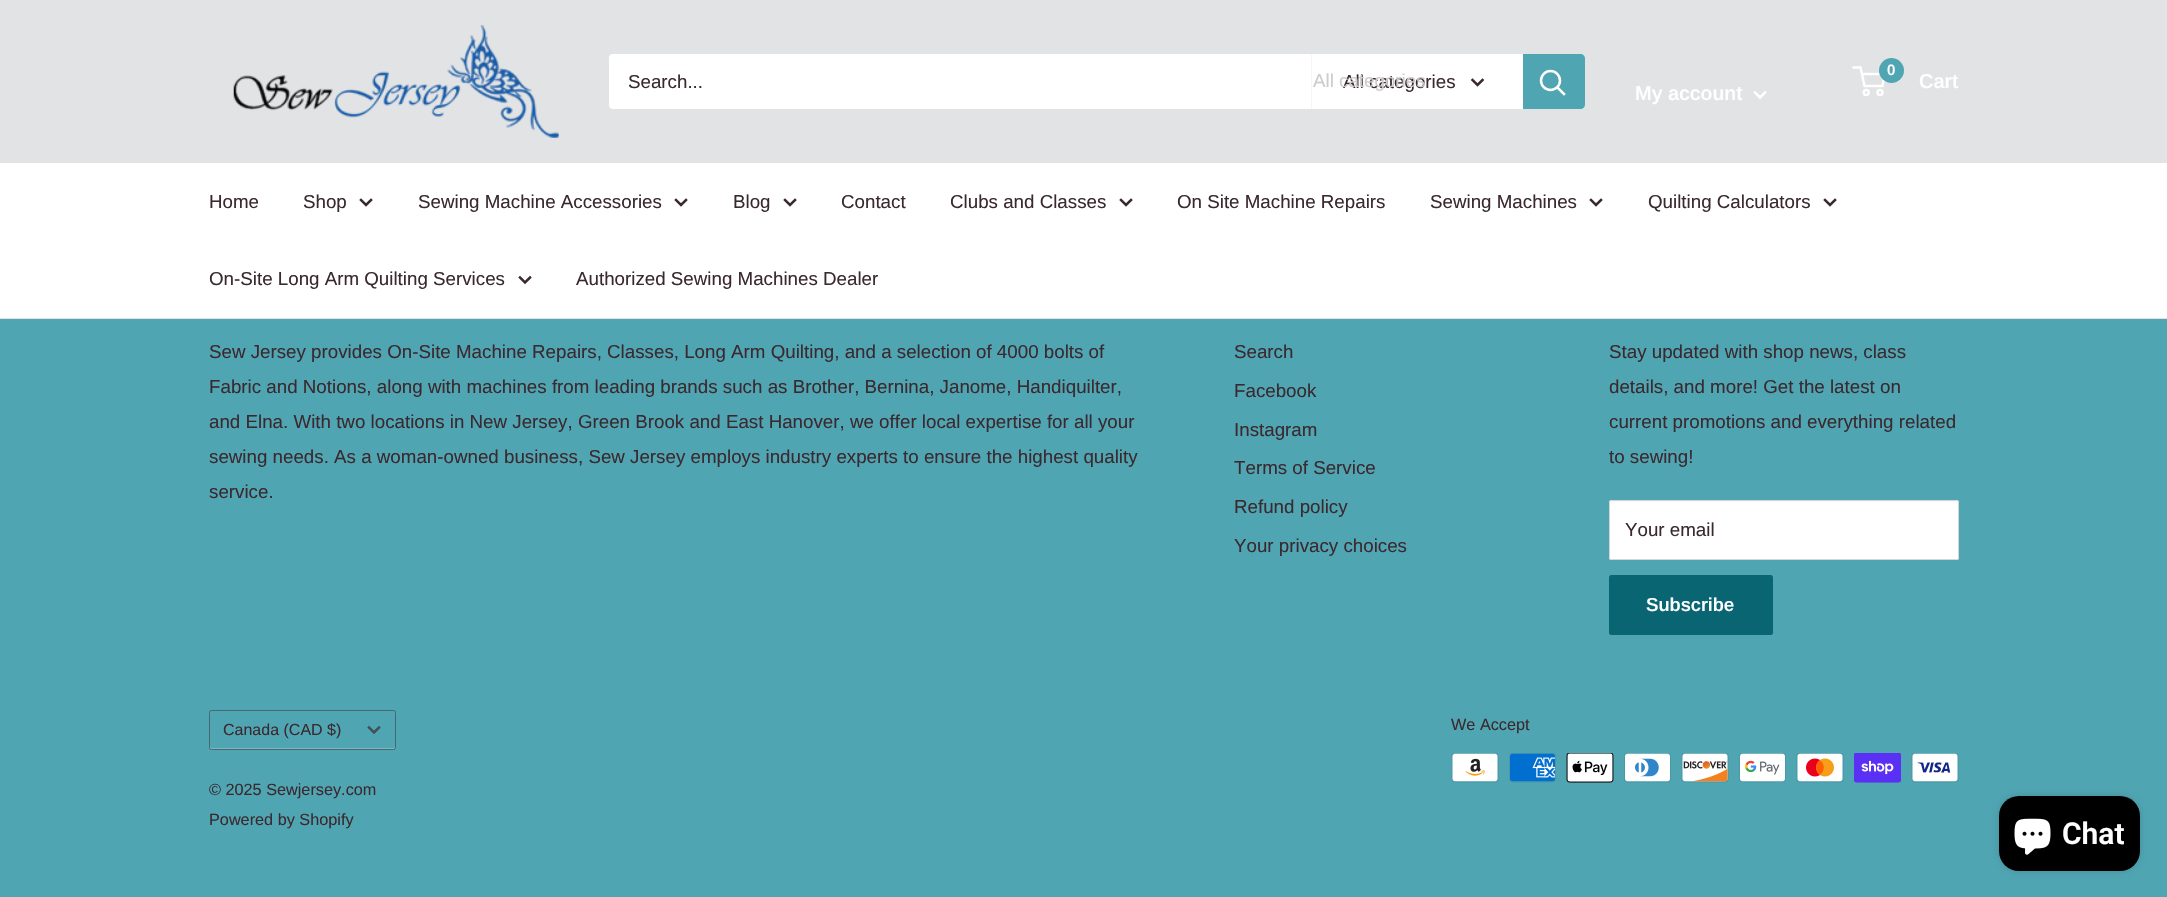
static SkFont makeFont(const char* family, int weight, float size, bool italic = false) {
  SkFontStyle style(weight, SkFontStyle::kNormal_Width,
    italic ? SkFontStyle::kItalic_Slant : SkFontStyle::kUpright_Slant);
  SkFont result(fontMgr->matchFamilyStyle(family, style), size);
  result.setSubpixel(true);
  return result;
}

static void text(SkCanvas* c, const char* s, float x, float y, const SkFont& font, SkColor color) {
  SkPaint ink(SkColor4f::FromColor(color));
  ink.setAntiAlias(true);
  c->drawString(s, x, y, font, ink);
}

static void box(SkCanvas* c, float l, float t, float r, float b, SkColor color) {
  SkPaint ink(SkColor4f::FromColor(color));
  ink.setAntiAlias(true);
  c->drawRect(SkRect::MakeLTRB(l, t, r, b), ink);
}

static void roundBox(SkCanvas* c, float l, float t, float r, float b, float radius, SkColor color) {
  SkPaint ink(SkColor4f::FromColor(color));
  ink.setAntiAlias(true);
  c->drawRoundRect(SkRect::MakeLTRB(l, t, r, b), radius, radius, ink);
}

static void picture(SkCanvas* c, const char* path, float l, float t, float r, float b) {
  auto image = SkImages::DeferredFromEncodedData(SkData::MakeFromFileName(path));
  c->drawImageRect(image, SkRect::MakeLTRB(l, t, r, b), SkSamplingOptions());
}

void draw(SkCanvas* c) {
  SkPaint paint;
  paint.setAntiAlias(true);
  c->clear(0xff50a5b3);
  box(c, 0, 0, 2167, 163, 0xffe1e3e4);
  picture(c, "img_01.png", 233, 25, 559, 138);
  roundBox(c, 609, 54, 1585, 109, 4, 0xffffffff);
  SkFont face1 = makeFont("Arimo", 400, 18.75f);
  text(c, "Search...", 628, 88, face1, 0xff3a2a2f);
  box(c, 1311, 54, 1312, 109, 0xfff8f6f5);
  text(c, "All categories", 1343, 88, face1, 0xff3a2a2f);
  text(c, "All categories", 1313, 87, face1, 0xffcecbcc);
  paint.setStyle(SkPaint::kStroke_Style);
  paint.setStrokeWidth(2.5f);
  paint.setStrokeCap(SkPaint::kSquare_Cap);
  paint.setColor(0xff3a2a2f);
  c->drawPath(SkPathBuilder().moveTo(1482.5f, 80).lineTo(1477.5f, 85).lineTo(1472.5f, 80).detach(), paint);
  paint.setStyle(SkPaint::kFill_Style);
  paint.setColor(0xff50a5b3);
  c->drawPath(SkPathBuilder().moveTo(1523, 54).lineTo(1581, 54).cubicTo(1583, 54, 1585, 56, 1585, 58).lineTo(1585, 105).cubicTo(1585, 107, 1583, 109, 1581, 109).lineTo(1523, 109).close().detach(), paint);
  paint.setStyle(SkPaint::kStroke_Style);
  paint.setColor(0xffffffff);
  c->drawPath(SkPathBuilder().moveTo(1564, 94).lineTo(1557.5f, 87.5f).detach(), paint);
  paint.setStrokeCap(SkPaint::kButt_Cap);
  c->drawCircle(1550.5f, 80.5f, 9.5f, paint);
  c->drawCircle(1866.2f, 92.5f, 2.5f, paint);
  c->drawCircle(1880, 92.5f, 2.5f, paint);
  c->drawPath(SkPathBuilder().moveTo(1861.5f, 74).lineTo(1884.5f, 74).lineTo(1882.5f, 86).lineTo(1864.5f, 86).lineTo(1860.5f, 67.5f).lineTo(1852.5f, 67.5f).detach(), paint);
  paint.setStyle(SkPaint::kFill_Style);
  paint.setColor(0xff50a5b3);
  c->drawCircle(1891.5f, 70.5f, 12.5f, paint);
  SkFont face2 = makeFont("Arimo", 600, 15);
  text(c, "0", 1887, 75, face2, 0xffffffff);
  SkFont face3 = makeFont("Arimo", 600, 20);
  text(c, "Cart", 1919, 88, face3, 0xffffffff);
  text(c, "My account", 1635, 100, face3, 0xffffffff);
  paint.setStyle(SkPaint::kStroke_Style);
  paint.setStrokeCap(SkPaint::kSquare_Cap);
  paint.setColor(0xffffffff);
  c->drawPath(SkPathBuilder().moveTo(1765, 92.5f).lineTo(1760, 97.5f).lineTo(1755, 92.5f).detach(), paint);
  box(c, 0, 163, 2167, 318, 0xffffffff);
  box(c, 0, 318, 2167, 319, 0xffe1e3e4);
  text(c, "Home", 209, 208, face1, 0xff3a2a2f);
  text(c, "Shop", 303, 208, face1, 0xff3a2a2f);
  paint.setColor(0xff3a2a2f);
  c->drawPath(SkPathBuilder().moveTo(371, 200).lineTo(366, 205).lineTo(361, 200).detach(), paint);
  text(c, "Sewing Machine Accessories", 418, 208, face1, 0xff3a2a2f);
  c->drawPath(SkPathBuilder().moveTo(686, 200).lineTo(681, 205).lineTo(676, 200).detach(), paint);
  text(c, "Blog", 733, 208, face1, 0xff3a2a2f);
  c->drawPath(SkPathBuilder().moveTo(795, 200).lineTo(790, 205).lineTo(785, 200).detach(), paint);
  text(c, "Contact", 841, 208, face1, 0xff3a2a2f);
  text(c, "Clubs and Classes", 950, 208, face1, 0xff3a2a2f);
  c->drawPath(SkPathBuilder().moveTo(1131, 200).lineTo(1126, 205).lineTo(1121, 200).detach(), paint);
  text(c, "On Site Machine Repairs", 1177, 208, face1, 0xff3a2a2f);
  text(c, "Sewing Machines", 1430, 208, face1, 0xff3a2a2f);
  c->drawPath(SkPathBuilder().moveTo(1601, 200).lineTo(1596, 205).lineTo(1591, 200).detach(), paint);
  text(c, "Quilting Calculators", 1648, 208, face1, 0xff3a2a2f);
  c->drawPath(SkPathBuilder().moveTo(1835, 200).lineTo(1830, 205).lineTo(1825, 200).detach(), paint);
  text(c, "On-Site Long Arm Quilting Services", 209, 285, face1, 0xff3a2a2f);
  c->drawPath(SkPathBuilder().moveTo(530, 277.5f).lineTo(525, 282.5f).lineTo(520, 277.5f).detach(), paint);
  text(c, "Authorized Sewing Machines Dealer", 576, 285, face1, 0xff3a2a2f);
  text(c, "Sew Jersey provides On-Site Machine Repairs, Classes, Long Arm Quilting, and a selection of 4000 bolts of", 209, 358, face1, 0xff3a2a2f);
  text(c, "Fabric and Notions, along with machines from leading brands such as Brother, Bernina, Janome, Handiquilter,", 209, 393, face1, 0xff3a2a2f);
  text(c, "and Elna. With two locations in New Jersey, Green Brook and East Hanover, we offer local expertise for all your", 209, 428, face1, 0xff3a2a2f);
  text(c, "sewing needs. As a woman-owned business, Sew Jersey employs industry experts to ensure the highest quality", 209, 463, face1, 0xff3a2a2f);
  text(c, "service.", 209, 498, face1, 0xff3a2a2f);
  text(c, "Search", 1234, 358, face1, 0xff3a2a2f);
  text(c, "Facebook", 1234, 397, face1, 0xff3a2a2f);
  text(c, "Instagram", 1234, 436, face1, 0xff3a2a2f);
  text(c, "Terms of Service", 1234, 474, face1, 0xff3a2a2f);
  text(c, "Refund policy", 1234, 513, face1, 0xff3a2a2f);
  text(c, "Your privacy choices", 1234, 552, face1, 0xff3a2a2f);
  text(c, "Stay updated with shop news, class", 1609, 358, face1, 0xff3a2a2f);
  text(c, "details, and more! Get the latest on", 1609, 393, face1, 0xff3a2a2f);
  text(c, "current promotions and everything related", 1609, 428, face1, 0xff3a2a2f);
  text(c, "to sewing!", 1609, 463, face1, 0xff3a2a2f);
  roundBox(c, 1609, 500, 1959, 560, 2.5f, 0xffffffff);
  paint.setStyle(SkPaint::kFill_Style);
  paint.setColor(0xfff8f8f8);
  c->drawPath(SkPathBuilder().moveTo(1611, 502).lineTo(1956, 502).cubicTo(1957, 502, 1958, 503, 1958, 504).cubicTo(1958, 503, 1958, 501, 1957, 501).lineTo(1610, 501).lineTo(1610, 504).close().detach(), paint);
  paint.setStyle(SkPaint::kStroke_Style);
  paint.setStrokeWidth(1);
  paint.setStrokeCap(SkPaint::kButt_Cap);
  paint.setColor(0xffd4d6d8);
  c->drawRoundRect(SkRect::MakeLTRB(1609.5f, 500.5f, 1958.5f, 559.5f), 2, 2, paint);
  text(c, "Your email", 1625, 536, face1, 0xff3a2a2f);
  roundBox(c, 1609, 575, 1773, 635, 2.5f, 0xff0a6573);
  SkFont face4 = makeFont("Arimo", 600, 18.75f);
  text(c, "Subscribe", 1646, 611, face4, 0xffffffff);
  paint.setStyle(SkPaint::kFill_Style);
  paint.setColor(0xff7cb8c2);
  c->drawPath(SkPathBuilder().moveTo(210, 746).cubicTo(210, 747, 210, 749, 211, 749).lineTo(394, 749).cubicTo(395, 748, 395, 747, 395, 746).lineTo(394, 748).lineTo(211, 748).close().detach(), paint);
  paint.setStyle(SkPaint::kStroke_Style);
  paint.setColor(0xff456871);
  c->drawRoundRect(SkRect::MakeLTRB(209.5f, 710.5f, 395.5f, 749.5f), 2, 2, paint);
  SkFont face5 = makeFont("Arimo", 400, 16);
  text(c, "Canada (CAD $)", 223, 735, face5, 0xff3a2a2f);
  paint.setStrokeWidth(2.5f);
  paint.setStrokeCap(SkPaint::kSquare_Cap);
  paint.setColor(0xff414f57);
  c->drawPath(SkPathBuilder().moveTo(379, 727.5f).lineTo(374, 732.5f).lineTo(369, 727.5f).detach(), paint);
  SkFont face6 = makeFont("Arimo", 400, 16.25f);
  text(c, "© 2025 Sewjersey.com", 209, 795, face6, 0xff3a2a2f);
  text(c, "Powered by Shopify", 209, 825, face6, 0xff3a2a2f);
  text(c, "We Accept", 1451, 730, face6, 0xff3a2a2f);
  picture(c, "img_02.png", 1451, 753, 1499, 783);
  picture(c, "img_03.png", 1509, 753, 1556, 783);
  picture(c, "img_04.png", 1566, 753, 1614, 783);
  picture(c, "img_05.png", 1624, 753, 1671, 783);
  picture(c, "img_06.png", 1681, 753, 1729, 783);
  picture(c, "img_07.png", 1739, 753, 1786, 783);
  picture(c, "img_08.png", 1796, 753, 1844, 783);
  picture(c, "img_09.png", 1854, 753, 1901, 783);
  picture(c, "img_10.png", 1911, 753, 1959, 783);
  paint.setStyle(SkPaint::kFill_Style);
  paint.setColor(0x26000000);
  paint.setMaskFilter(SkMaskFilter::MakeBlur(kNormal_SkBlurStyle, 3));
  c->drawRoundRect(SkRect::MakeLTRB(1999, 796, 2140, 871), 20, 20, paint);
  paint.setMaskFilter(nullptr);
  roundBox(c, 1999, 796, 2140, 871, 20, 0xff000000);
  picture(c, "img_11.png", 2014, 818, 2051, 855);
  SkFont face7 = makeFont("Roboto", 600, 30);
  text(c, "Chat", 2062, 844, face7, 0xffffffff);
}
